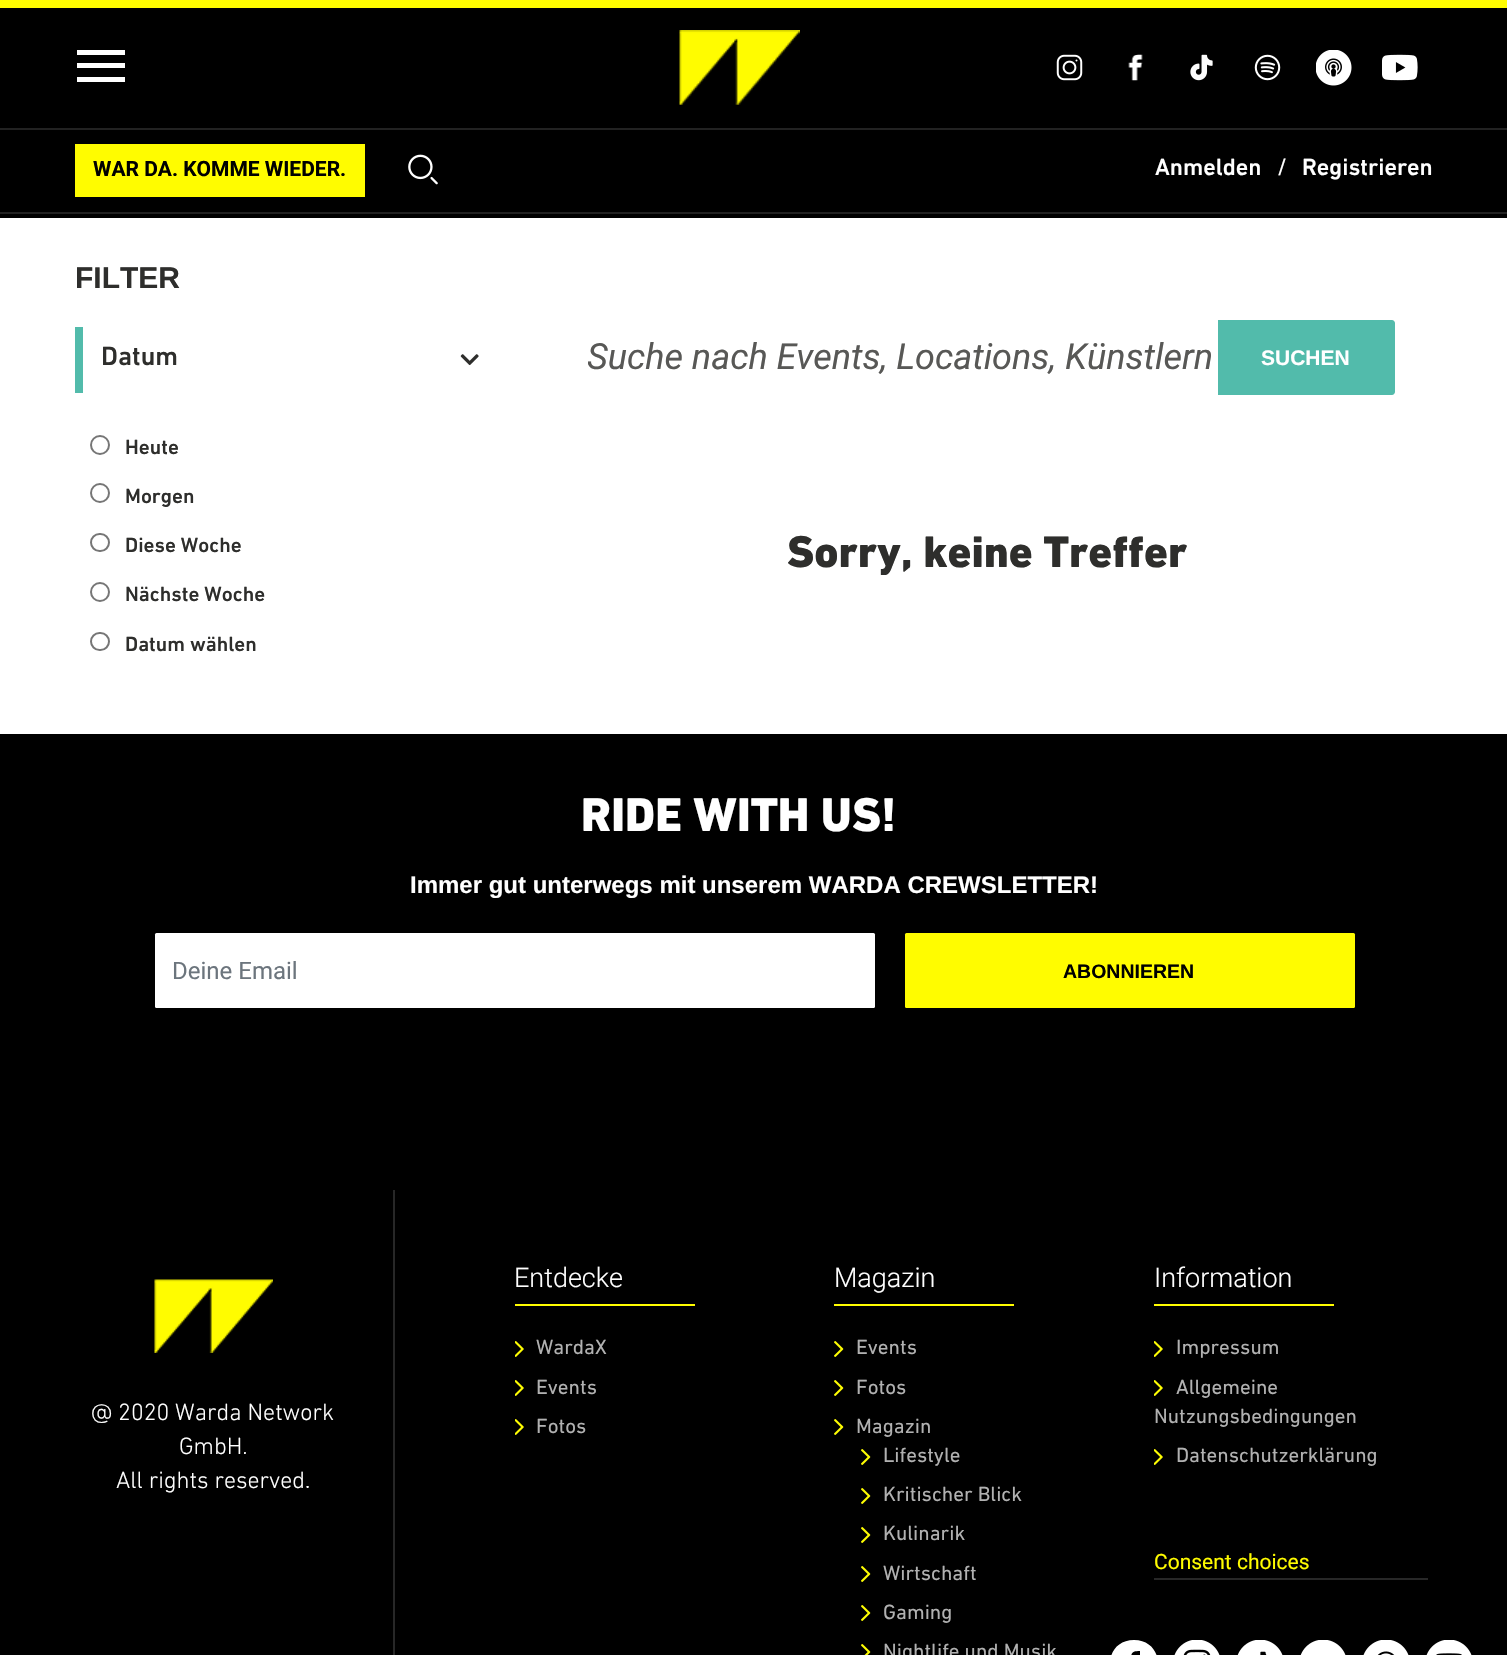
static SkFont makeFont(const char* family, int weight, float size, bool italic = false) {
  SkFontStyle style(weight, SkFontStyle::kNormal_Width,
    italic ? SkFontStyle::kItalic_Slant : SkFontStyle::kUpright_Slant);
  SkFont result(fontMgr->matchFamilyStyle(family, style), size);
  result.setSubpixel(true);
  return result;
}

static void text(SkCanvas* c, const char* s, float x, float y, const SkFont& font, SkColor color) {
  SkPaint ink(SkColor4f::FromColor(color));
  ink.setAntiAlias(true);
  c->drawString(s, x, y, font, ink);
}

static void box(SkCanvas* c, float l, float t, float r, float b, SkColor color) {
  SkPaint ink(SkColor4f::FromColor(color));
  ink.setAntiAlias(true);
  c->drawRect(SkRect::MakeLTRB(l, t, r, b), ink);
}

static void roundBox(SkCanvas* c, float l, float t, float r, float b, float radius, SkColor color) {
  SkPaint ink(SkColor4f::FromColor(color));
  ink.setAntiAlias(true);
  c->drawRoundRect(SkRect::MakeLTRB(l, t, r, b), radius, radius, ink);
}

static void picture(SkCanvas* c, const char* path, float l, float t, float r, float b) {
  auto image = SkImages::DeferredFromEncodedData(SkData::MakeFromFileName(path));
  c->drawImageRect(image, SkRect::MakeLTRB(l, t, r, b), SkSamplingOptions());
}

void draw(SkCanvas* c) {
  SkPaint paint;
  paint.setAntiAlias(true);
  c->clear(0xffffffff);
  box(c, 0, 8, 1507, 218, 0xff000000);
  box(c, 0, 0, 1507, 8, 0xfffffc00);
  box(c, 0, 128, 1507, 130, 0xff222222);
  box(c, 77, 50, 125, 55, 0xffffffff);
  box(c, 77, 63, 125, 68, 0xffffffff);
  box(c, 77, 77, 125, 82, 0xffffffff);
  picture(c, "img_01.png", 679, 30, 800, 105);
  picture(c, "img_02.png", 1056, 54, 1083, 81);
  picture(c, "img_03.png", 1128, 54, 1143, 81);
  picture(c, "img_04.png", 1190, 54, 1213, 81);
  picture(c, "img_05.png", 1254, 54, 1281, 81);
  picture(c, "img_06.png", 1316, 50, 1352, 86);
  picture(c, "img_07.png", 1382, 54, 1418, 81);
  box(c, 0, 212, 1507, 214, 0xff222222);
  box(c, 75, 144, 365, 197, 0xfffffc00);
  SkFont face1 = makeFont("Roboto", 700, 21);
  text(c, "WAR DA. KOMME WIEDER.", 93, 176, face1, 0xff000000);
  picture(c, "img_08.png", 408, 154, 438, 185);
  SkFont face2 = makeFont("DIN Next", 500, 24);
  text(c, "Anmelden", 1155, 175, face2, 0xffffffff);
  SkFont face3 = makeFont("DIN Next", 400, 24);
  text(c, "/", 1277, 175, face3, 0xffffffff);
  text(c, "Registrieren", 1302, 175, face2, 0xffffffff);
  SkFont face4 = makeFont("Liberation Sans", 700, 30);
  text(c, "FILTER", 75, 288, face4, 0xff2e2e2c);
  box(c, 75, 327, 83, 393, 0xff52bbab);
  SkFont face5 = makeFont("DIN Next", 500, 27);
  text(c, "Datum", 101, 365, face5, 0xff2e2e2c);
  picture(c, "img_09.png", 460, 354, 479, 366);
  paint.setStyle(SkPaint::kStroke_Style);
  paint.setStrokeWidth(2);
  paint.setColor(0xff767676);
  c->drawCircle(100, 445, 9, paint);
  SkFont face6 = makeFont("DIN Next", 500, 21);
  text(c, "Heute", 125, 454, face6, 0xff2e2e2c);
  c->drawCircle(100, 493, 9, paint);
  text(c, "Morgen", 125, 503, face6, 0xff2e2e2c);
  c->drawRoundRect(SkRect::MakeLTRB(91, 534, 109, 551), 8.5f, 8.5f, paint);
  text(c, "Diese Woche", 125, 552, face6, 0xff2e2e2c);
  c->drawCircle(100, 592, 9, paint);
  text(c, "Nächste Woche", 125, 601, face6, 0xff2e2e2c);
  c->drawRoundRect(SkRect::MakeLTRB(91, 633, 109, 650), 8.5f, 8.5f, paint);
  text(c, "Datum wählen", 125, 651, face6, 0xff2e2e2c);
  paint.setStyle(SkPaint::kFill_Style);
  paint.setColor(0xff52bbab);
  c->drawPath(SkPathBuilder().moveTo(1217, 320).lineTo(1392, 320).cubicTo(1393.5f, 320, 1395, 321.5f, 1395, 323).lineTo(1395, 392).cubicTo(1395, 393.5f, 1393.5f, 395, 1392, 395).lineTo(1217, 395).close().detach(), paint);
  box(c, 1217, 320, 1218, 395, 0xffffffff);
  c->save();
  c->clipRect(SkRect::MakeLTRB(588, 336, 1211, 378));
  SkFont face7 = makeFont("Roboto", 400, 36, true);
  text(c, "Suche nach Events, Locations, Künstlern", 587, 369, face7, 0xff585856);
  c->restore();
  SkFont face8 = makeFont("Liberation Sans", 700, 21);
  text(c, "SUCHEN", 1261, 365, face8, 0xffffffff);
  SkFont face9 = makeFont("DIN Next", 900, 45);
  text(c, "Sorry, keine Treffer", 787, 567, face9, 0xff2e2e2c);
  box(c, 0, 734, 1507, 1655, 0xff000000);
  SkFont face10 = makeFont("DIN Next", 900, 48);
  text(c, "RIDE WITH US!", 581, 831, face10, 0xffffffff);
  SkFont face11 = makeFont("Liberation Sans", 700, 24);
  text(c, "Immer gut unterwegs mit unserem WARDA CREWSLETTER!", 410, 893, face11, 0xffffffff);
  roundBox(c, 155, 933, 875, 1008, 1.5f, 0xffffffff);
  SkFont face12 = makeFont("Roboto", 400, 24);
  text(c, "Deine Email", 172, 979, face12, 0xff6c757d);
  roundBox(c, 905, 933, 1355, 1008, 1.5f, 0xfffffc00);
  SkFont face13 = makeFont("Liberation Sans", 700, 19.5f);
  text(c, "ABONNIEREN", 1063, 978, face13, 0xff000000);
  box(c, 393, 1190, 395, 1655, 0xff272727);
  picture(c, "img_10.png", 154, 1279, 273, 1353);
  SkFont face14 = makeFont("DIN Next", 300, 24);
  text(c, "@ 2020 Warda Network", 91, 1420, face14, 0xffffffff);
  text(c, "GmbH.", 179, 1454, face14, 0xffffffff);
  text(c, "All rights reserved.", 116, 1488, face14, 0xffffffff);
  SkFont face15 = makeFont("Roboto", 300, 27);
  text(c, "Entdecke", 514, 1287, face15, 0xffffffff);
  box(c, 515, 1304, 695, 1306, 0xfffffc00);
  picture(c, "img_11.png", 515, 1341, 524, 1357);
  SkFont face16 = makeFont("DIN Next", 400, 21);
  text(c, "WardaX", 536, 1354, face16, 0xffb1b1b1);
  picture(c, "img_11.png", 515, 1380, 524, 1396);
  text(c, "Events", 536, 1394, face16, 0xffb1b1b1);
  picture(c, "img_11.png", 515, 1419, 524, 1435);
  text(c, "Fotos", 536, 1433, face16, 0xffb1b1b1);
  text(c, "Magazin", 834, 1287, face15, 0xffffffff);
  box(c, 834, 1304, 1014, 1306, 0xfffffc00);
  picture(c, "img_12.png", 834, 1341, 844, 1357);
  text(c, "Events", 856, 1354, face16, 0xffb1b1b1);
  picture(c, "img_12.png", 834, 1380, 844, 1396);
  text(c, "Fotos", 856, 1394, face16, 0xffb1b1b1);
  picture(c, "img_12.png", 834, 1419, 844, 1435);
  text(c, "Magazin", 856, 1433, face16, 0xffb1b1b1);
  picture(c, "img_12.png", 861, 1449, 871, 1465);
  text(c, "Lifestyle", 883, 1462, face16, 0xffb1b1b1);
  picture(c, "img_12.png", 861, 1488, 871, 1504);
  text(c, "Kritischer Blick", 883, 1501, face16, 0xffb1b1b1);
  picture(c, "img_12.png", 861, 1527, 871, 1543);
  text(c, "Kulinarik", 883, 1540, face16, 0xffb1b1b1);
  picture(c, "img_12.png", 861, 1566, 871, 1582);
  text(c, "Wirtschaft", 883, 1580, face16, 0xffb1b1b1);
  picture(c, "img_12.png", 861, 1605, 871, 1621);
  text(c, "Gaming", 883, 1619, face16, 0xffb1b1b1);
  picture(c, "img_13.png", 861, 1644, 871, 1655);
  text(c, "Nightlife und Musik", 883, 1658, face16, 0xffb1b1b1);
  text(c, "Information", 1154, 1287, face15, 0xffffffff);
  box(c, 1154, 1304, 1334, 1306, 0xfffffc00);
  picture(c, "img_11.png", 1154, 1341, 1163, 1357);
  text(c, "Impressum", 1176, 1354, face16, 0xffb1b1b1);
  picture(c, "img_11.png", 1154, 1380, 1163, 1396);
  text(c, "Allgemeine", 1176, 1394, face16, 0xffb1b1b1);
  text(c, "Nutzungsbedingungen", 1154, 1423, face16, 0xffb1b1b1);
  picture(c, "img_11.png", 1154, 1449, 1163, 1465);
  text(c, "Datenschutzerklärung", 1176, 1462, face16, 0xffb1b1b1);
  SkFont face17 = makeFont("Roboto", 400, 21);
  text(c, "Consent choices", 1154, 1569, face17, 0xfffffc00);
  box(c, 1154, 1578, 1428, 1580, 0xff272727);
  paint.setColor(0xffffffff);
  c->drawPath(SkPathBuilder().moveTo(1134, 1640).cubicTo(1102, 1640, 1102, 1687, 1134, 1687).cubicTo(1166, 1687, 1166, 1640, 1134, 1640).close().moveTo(1140, 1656).cubicTo(1136, 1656, 1136, 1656, 1136, 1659).lineTo(1140, 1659).lineTo(1139, 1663).lineTo(1136, 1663).lineTo(1136, 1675).lineTo(1131, 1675).lineTo(1131, 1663).lineTo(1128, 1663).lineTo(1128, 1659).lineTo(1131, 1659).cubicTo(1131, 1652, 1133, 1651, 1140, 1651).close().detach(), paint);
  picture(c, "img_14.png", 1174, 1640, 1220, 1655);
  picture(c, "img_15.png", 1237, 1640, 1283, 1655);
  picture(c, "img_16.png", 1300, 1640, 1346, 1655);
  picture(c, "img_17.png", 1363, 1640, 1409, 1655);
  picture(c, "img_18.png", 1426, 1640, 1472, 1655);
}
